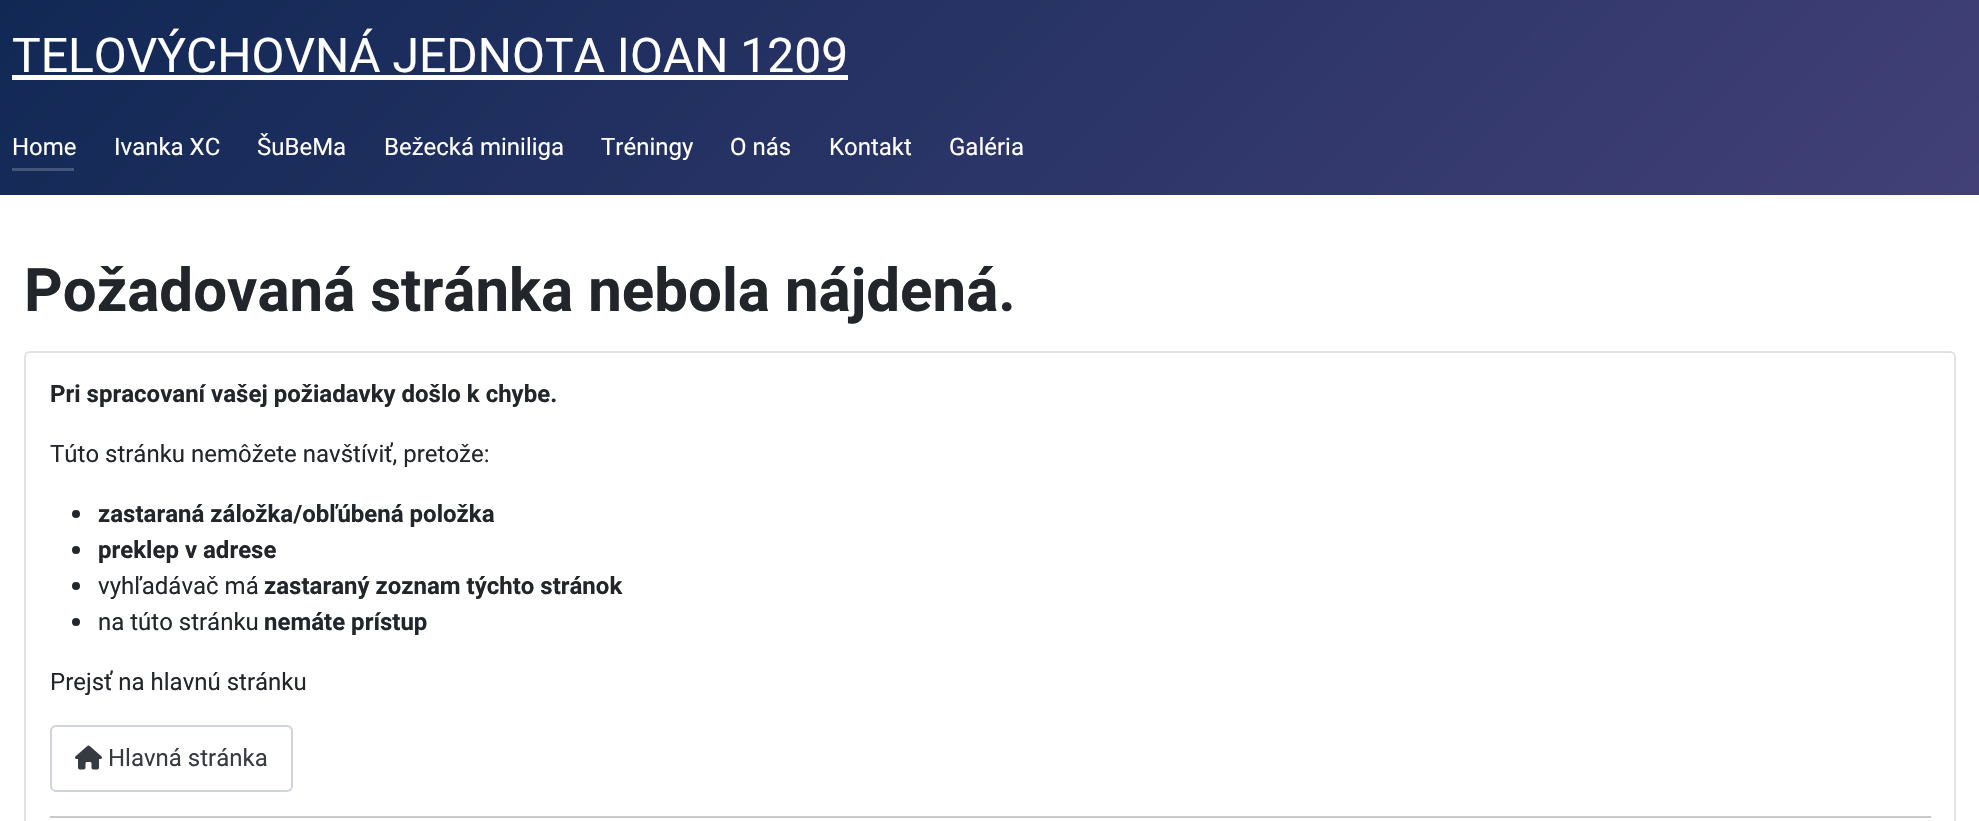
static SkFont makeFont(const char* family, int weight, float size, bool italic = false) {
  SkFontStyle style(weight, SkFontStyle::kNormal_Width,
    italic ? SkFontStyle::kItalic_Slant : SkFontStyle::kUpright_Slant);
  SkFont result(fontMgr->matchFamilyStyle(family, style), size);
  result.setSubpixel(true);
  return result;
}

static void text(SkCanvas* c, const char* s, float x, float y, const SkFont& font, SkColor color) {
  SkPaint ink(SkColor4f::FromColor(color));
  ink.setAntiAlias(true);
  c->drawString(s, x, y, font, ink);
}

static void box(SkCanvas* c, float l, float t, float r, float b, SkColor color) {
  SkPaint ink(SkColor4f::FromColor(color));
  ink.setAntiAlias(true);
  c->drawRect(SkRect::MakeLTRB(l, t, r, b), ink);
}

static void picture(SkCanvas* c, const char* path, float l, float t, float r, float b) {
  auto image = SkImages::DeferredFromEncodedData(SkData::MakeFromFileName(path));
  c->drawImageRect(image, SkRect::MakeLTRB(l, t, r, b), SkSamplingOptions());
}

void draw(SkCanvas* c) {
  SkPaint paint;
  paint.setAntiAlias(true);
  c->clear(0xffffffff);
  {
    const SkColor colors[] = {0xff112855, 0xff424077};
    const float stops[] = {0, 1};
    const SkPoint ends[] = {{446, -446}, {1534, 641}};
    paint.setShader(SkGradientShader::MakeLinear(ends, colors, stops, 2, SkTileMode::kClamp));
    paint.setAlpha(255);
  }
  c->drawRect(SkRect::MakeLTRB(0, 0, 1979, 195), paint);
  SkFont face1 = makeFont("Roboto", 400, 48);
  text(c, "TELOVÝCHOVNÁ JEDNOTA IOAN 1209", 12, 72, face1, 0xffffffff);
  box(c, 12, 75, 848, 80, 0xffffffff);
  SkFont face2 = makeFont("Roboto", 400, 24);
  text(c, "Home", 12, 155, face2, 0xffffffff);
  box(c, 12, 168, 74, 171, 0xff44557a);
  text(c, "Ivanka XC", 114, 155, face2, 0xffffffff);
  text(c, "ŠuBeMa", 257, 155, face2, 0xffffffff);
  text(c, "Bežecká miniliga", 384, 155, face2, 0xffffffff);
  text(c, "Tréningy", 601, 155, face2, 0xffffffff);
  text(c, "O nás", 730, 155, face2, 0xffffffff);
  text(c, "Kontakt", 829, 155, face2, 0xffffffff);
  text(c, "Galéria", 949, 155, face2, 0xffffffff);
  SkFont face3 = makeFont("Roboto", 700, 60);
  text(c, "Požadovaná stránka nebola nájdená.", 24, 311, face3, 0xff22262a);
  paint.setStyle(SkPaint::kStroke_Style);
  paint.setStrokeWidth(2);
  paint.setShader(nullptr);
  paint.setColor(0xffdfe3e7);
  c->drawRoundRect(SkRect::MakeLTRB(25, 352, 1955, 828), 5, 5, paint);
  SkFont face4 = makeFont("Roboto", 700, 24);
  text(c, "Pri spracovaní vašej požiadavky došlo k chybe.", 50, 402, face4, 0xff22262a);
  text(c, "Túto stránku nemôžete navštíviť, pretože:", 50, 462, face2, 0xff22262a);
  paint.setStyle(SkPaint::kFill_Style);
  paint.setColor(0xff22262a);
  c->drawCircle(76, 514, 4, paint);
  text(c, "zastaraná záložka/obľúbená položka", 98, 522, face4, 0xff22262a);
  c->drawCircle(76, 550, 4, paint);
  text(c, "preklep v adrese", 98, 558, face4, 0xff22262a);
  c->drawCircle(76, 586, 4, paint);
  text(c, "vyhľadávač má", 98, 594, face2, 0xff22262a);
  text(c, "zastaraný zoznam týchto stránok", 264, 594, face4, 0xff22262a);
  c->drawCircle(76, 622, 4, paint);
  text(c, "na túto stránku", 98, 630, face2, 0xff22262a);
  text(c, "nemáte prístup", 264, 630, face4, 0xff22262a);
  text(c, "Prejsť na hlavnú stránku", 50, 690, face2, 0xff22262a);
  paint.setStyle(SkPaint::kStroke_Style);
  paint.setColor(0xffced4da);
  c->drawRoundRect(SkRect::MakeLTRB(51, 726, 292, 791), 5, 5, paint);
  picture(c, "img_01.png", 75, 745, 102, 770);
  text(c, "Hlavná stránka", 108, 766, face2, 0xff353b41);
  box(c, 50, 816, 1931, 818, 0xffc8c9ca);
}
